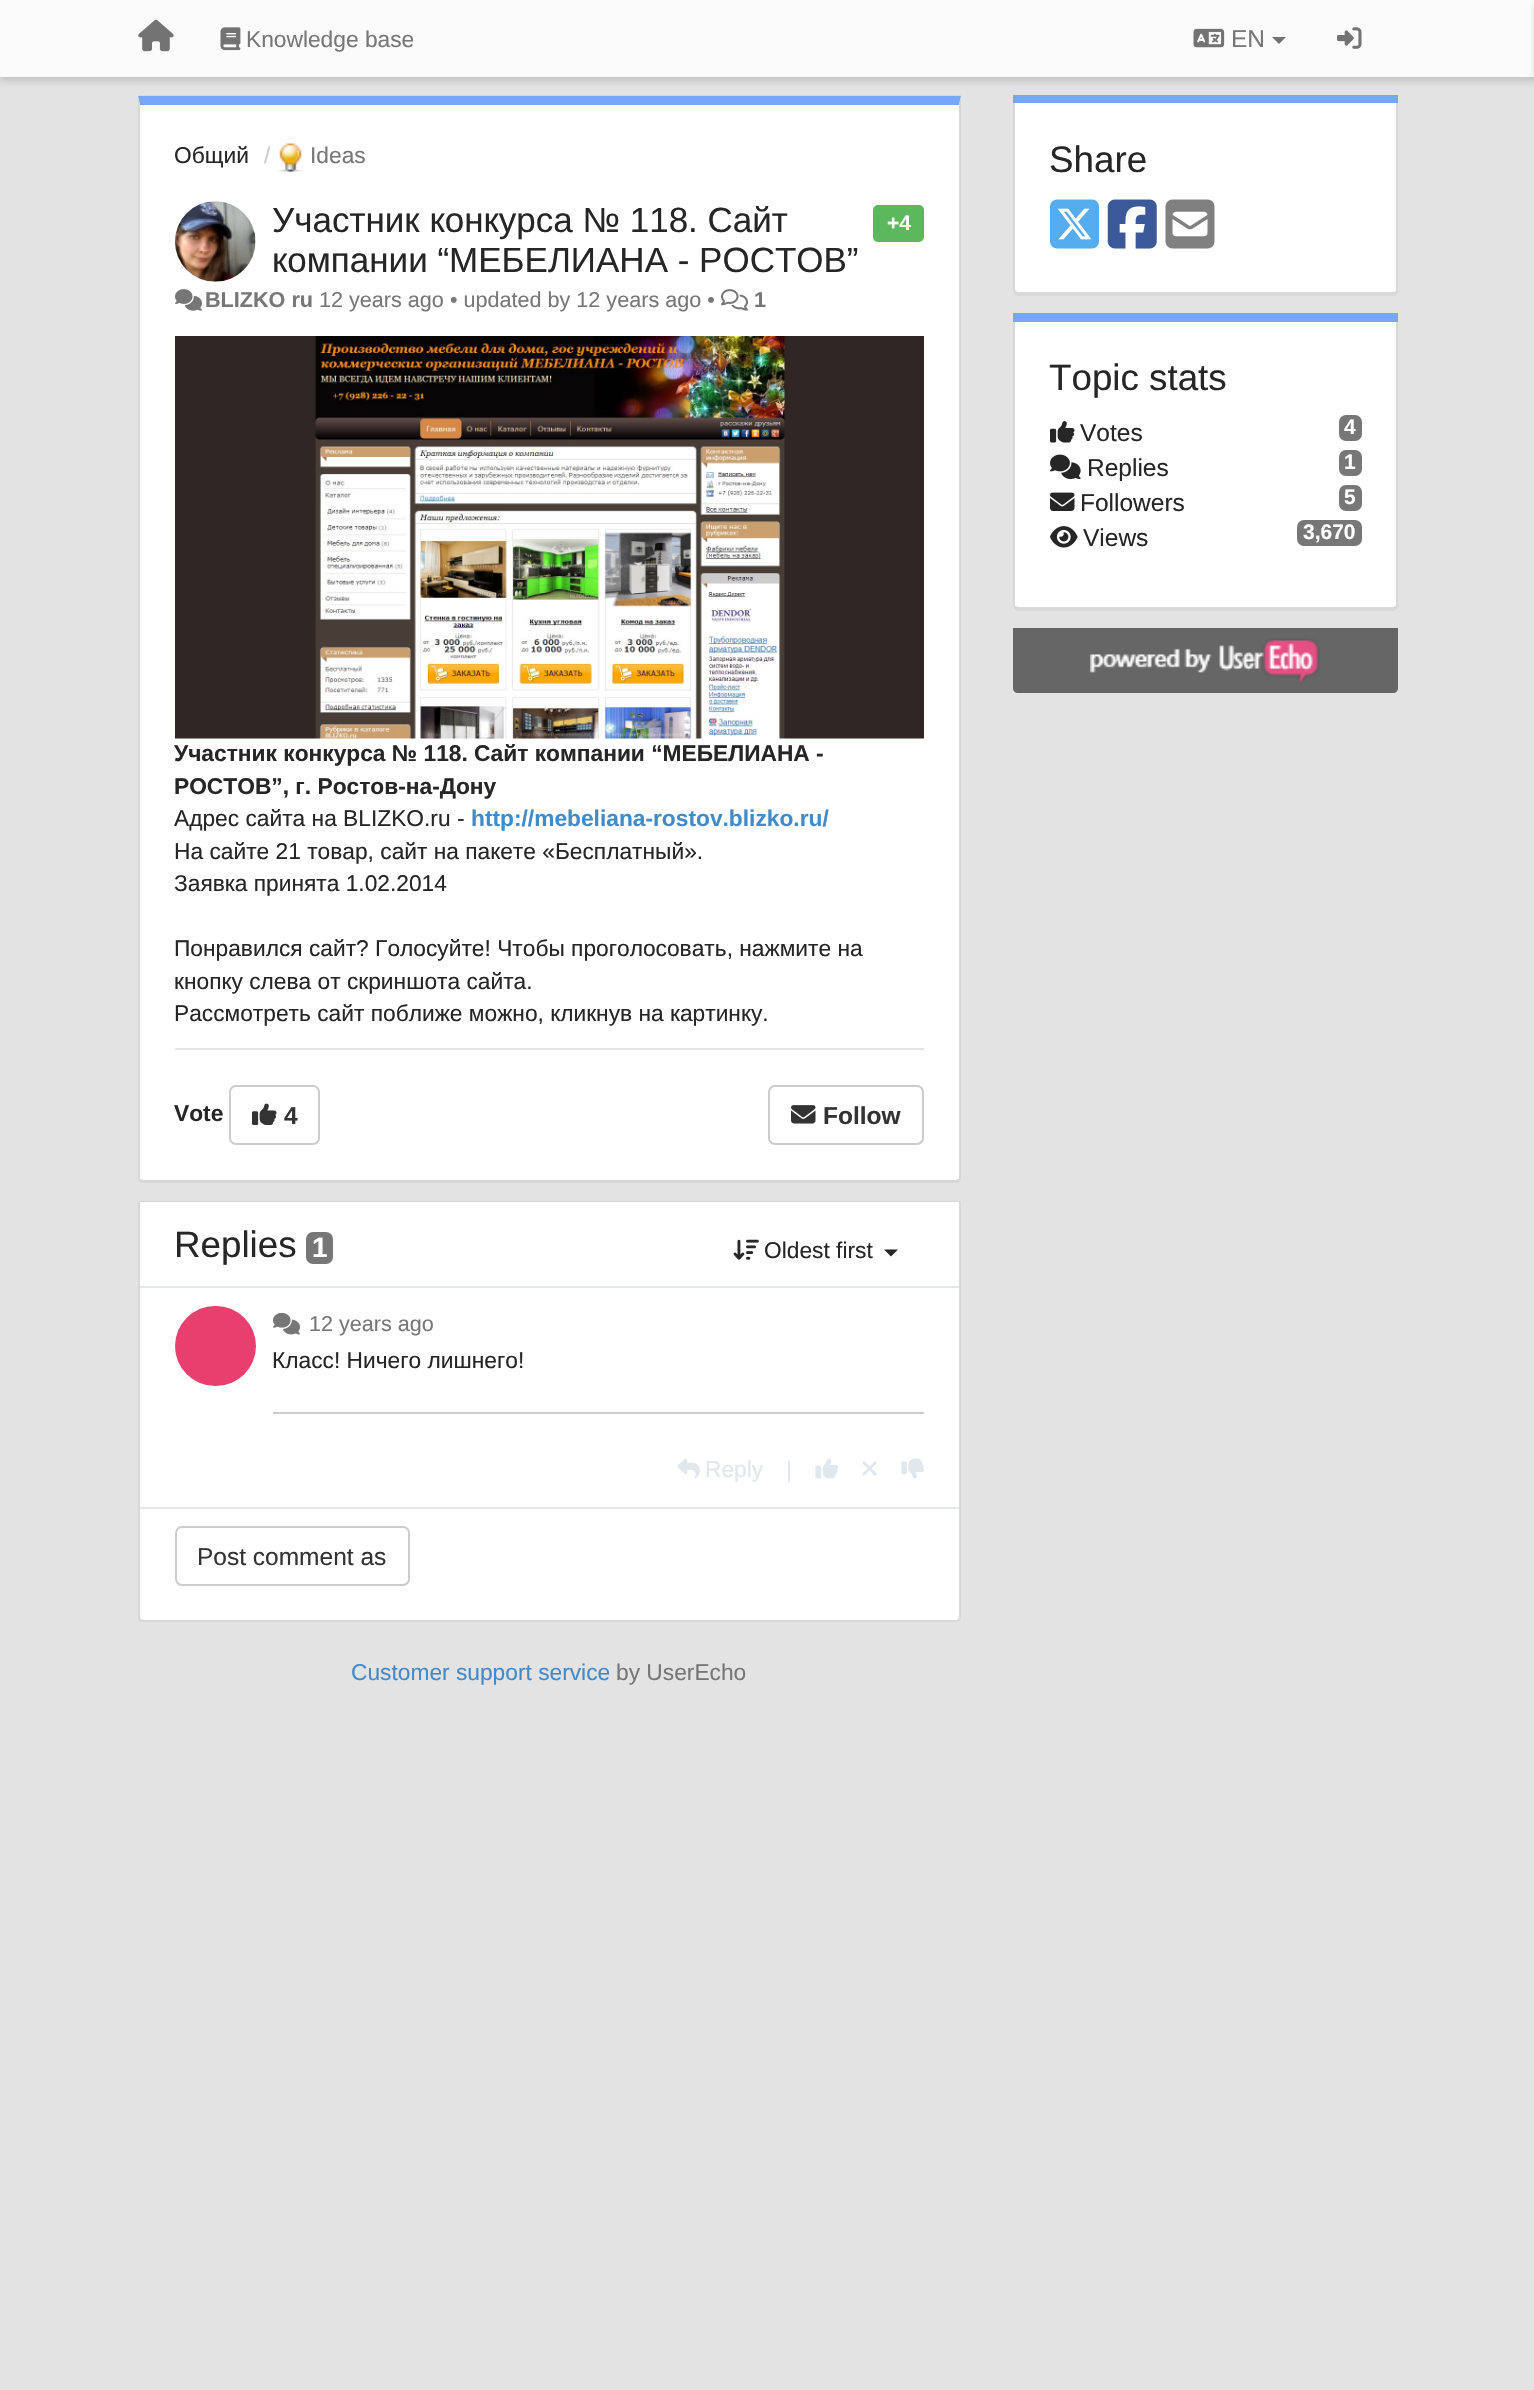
static SkFont makeFont(const char* family, int weight, float size, bool italic = false) {
  SkFontStyle style(weight, SkFontStyle::kNormal_Width,
    italic ? SkFontStyle::kItalic_Slant : SkFontStyle::kUpright_Slant);
  SkFont result(fontMgr->matchFamilyStyle(family, style), size);
  result.setSubpixel(true);
  return result;
}

static void text(SkCanvas* c, const char* s, float x, float y, const SkFont& font, SkColor color) {
  SkPaint ink(SkColor4f::FromColor(color));
  ink.setAntiAlias(true);
  c->drawString(s, x, y, font, ink);
}

static void box(SkCanvas* c, float l, float t, float r, float b, SkColor color) {
  SkPaint ink(SkColor4f::FromColor(color));
  ink.setAntiAlias(true);
  c->drawRect(SkRect::MakeLTRB(l, t, r, b), ink);
}

static void roundBox(SkCanvas* c, float l, float t, float r, float b, float radius, SkColor color) {
  SkPaint ink(SkColor4f::FromColor(color));
  ink.setAntiAlias(true);
  c->drawRoundRect(SkRect::MakeLTRB(l, t, r, b), radius, radius, ink);
}

static void picture(SkCanvas* c, const char* path, float l, float t, float r, float b) {
  auto image = SkImages::DeferredFromEncodedData(SkData::MakeFromFileName(path));
  c->drawImageRect(image, SkRect::MakeLTRB(l, t, r, b), SkSamplingOptions());
}

void draw(SkCanvas* c) {
  SkPaint paint;
  paint.setAntiAlias(true);
  c->clear(0xffe3e3e3);
  paint.setColor(0x26000000);
  paint.setMaskFilter(SkMaskFilter::MakeBlur(kNormal_SkBlurStyle, 3.5f));
  c->drawRect(SkRect::MakeLTRB(0, 4, 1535, 81), paint);
  paint.setMaskFilter(nullptr);
  box(c, 0, 0, 1534, 77, 0xfffbfbfb);
  picture(c, "img_01.png", 138, 19, 174, 52);
  picture(c, "img_02.png", 220, 27, 241, 51);
  SkFont face1 = makeFont("Liberation Sans", 400, 22.75f);
  text(c, "Knowledge base", 246, 47, face1, 0xff777777);
  picture(c, "img_03.png", 1193, 28, 1225, 48);
  SkFont face2 = makeFont("Liberation Sans", 400, 24.5f);
  text(c, "EN", 1231, 47, face2, 0xff777777);
  paint.setColor(0xff737373);
  c->drawPath(SkPathBuilder().moveTo(1272, 37).lineTo(1286, 37).lineTo(1279, 44).close().detach(), paint);
  picture(c, "img_04.png", 1337, 27, 1362, 49);
  paint.setColor(0x26000000);
  paint.setMaskFilter(SkMaskFilter::MakeBlur(kNormal_SkBlurStyle, 3.5f));
  c->drawRect(SkRect::MakeLTRB(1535, 4, 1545, 81), paint);
  paint.setMaskFilter(nullptr);
  box(c, 138, 95, 961, 97, 0xffd8d8d8);
  paint.setColor(0xffffffff);
  c->drawPath(SkPathBuilder().moveTo(140, 105).lineTo(959, 105).lineTo(959, 1178).cubicTo(959, 1179, 957, 1180, 956, 1180).lineTo(144, 1180).cubicTo(142, 1180, 140, 1179, 140, 1178).close().detach(), paint);
  paint.setColor(0xff76a7fa);
  c->drawPath(SkPathBuilder().moveTo(140, 105).lineTo(959, 105).lineTo(961, 96).lineTo(138, 96).close().detach(), paint);
  paint.setColor(0xffd8d8d8);
  c->drawPath(SkPathBuilder().moveTo(961, 96).lineTo(961, 1179).lineTo(960, 1181).lineTo(959, 1179).lineTo(959, 1178).lineTo(959, 105).close().detach(), paint);
  c->drawPath(SkPathBuilder().moveTo(144, 1183).lineTo(956, 1183).cubicTo(957, 1183, 959, 1182, 960, 1181).lineTo(959, 1179).lineTo(956, 1180).lineTo(144, 1180).lineTo(140, 1179).lineTo(139, 1181).cubicTo(140, 1182, 142, 1183, 144, 1183).close().detach(), paint);
  c->drawPath(SkPathBuilder().moveTo(140, 105).lineTo(140, 1178).lineTo(140, 1179).lineTo(139, 1181).lineTo(138, 1179).lineTo(138, 96).close().detach(), paint);
  text(c, "Общий", 174, 163, face1, 0xff262626);
  text(c, "/", 264, 163, face1, 0xffcccccc);
  picture(c, "img_05.png", 278, 143, 303, 172);
  text(c, "Ideas", 310, 163, face1, 0xff777777);
  picture(c, "img_06.png", 175, 201, 256, 282);
  SkFont face3 = makeFont("Liberation Sans", 400, 35);
  text(c, "Участник конкурса № 118. Сайт", 272, 232, face3, 0xff262626);
  text(c, "компании “МЕБЕЛИАНА - РОСТОВ”", 272, 272, face3, 0xff262626);
  roundBox(c, 873, 205, 924, 242, 5, 0xff5cb85c);
  SkFont face4 = makeFont("Liberation Sans", 700, 21);
  text(c, "+4", 887, 230, face4, 0xffffffff);
  picture(c, "img_07.png", 175, 289, 202, 311);
  SkFont face5 = makeFont("Liberation Sans", 700, 21.6f);
  text(c, "BLIZKO ru", 205, 307, face5, 0xff777777);
  SkFont face6 = makeFont("Liberation Sans", 400, 21.6f);
  text(c, "12 years ago • updated by 12 years ago •", 319, 307, face6, 0xff777777);
  picture(c, "img_08.png", 721, 289, 748, 311);
  text(c, "1", 754, 307, face5, 0xff777777);
  picture(c, "img_09.png", 175, 336, 924, 739);
  SkFont face7 = makeFont("Liberation Sans", 700, 22.75f);
  text(c, "Участник конкурса № 118. Сайт компании “МЕБЕЛИАНА -", 174, 761, face7, 0xff262626);
  text(c, "РОСТОВ”, г. Ростов-на-Дону", 174, 794, face7, 0xff262626);
  text(c, "Адрес сайта на BLIZKO.ru -", 174, 826, face1, 0xff262626);
  text(c, "http://mebeliana-rostov.blizko.ru/", 471, 826, face7, 0xff428bca);
  text(c, "На сайте 21 товар, сайт на пакете «Бесплатный».", 174, 859, face1, 0xff262626);
  text(c, "Заявка принята 1.02.2014", 174, 891, face1, 0xff262626);
  text(c, "Понравился сайт? Голосуйте! Чтобы проголосовать, нажмите на", 174, 956, face1, 0xff262626);
  text(c, "кнопку слева от скриншота сайта.", 174, 989, face1, 0xff262626);
  text(c, "Рассмотреть сайт поближе можно, кликнув на картинку.", 174, 1021, face1, 0xff262626);
  box(c, 175, 1048, 924, 1050, 0xffe5e5e5);
  text(c, "Vote", 174, 1121, face7, 0xff262626);
  paint.setStyle(SkPaint::kStroke_Style);
  paint.setStrokeWidth(2);
  paint.setColor(0xffcccccc);
  c->drawRoundRect(SkRect::MakeLTRB(230, 1086, 319, 1144), 6, 6, paint);
  picture(c, "img_10.png", 252, 1103, 277, 1125);
  SkFont face8 = makeFont("Liberation Sans", 700, 24.5f);
  text(c, "4", 284, 1124, face8, 0xff333333);
  c->drawRoundRect(SkRect::MakeLTRB(769, 1086, 923, 1144), 6, 6, paint);
  picture(c, "img_11.png", 791, 1105, 816, 1124);
  text(c, "Follow", 823, 1124, face8, 0xff333333);
  box(c, 138, 1201, 961, 1202, 0xffd8d8d8);
  paint.setStyle(SkPaint::kFill_Style);
  paint.setColor(0xffffffff);
  c->drawPath(SkPathBuilder().moveTo(140, 1202).lineTo(959, 1202).lineTo(959, 1617).cubicTo(959, 1619, 957, 1621, 955, 1621).lineTo(144, 1621).cubicTo(142, 1621, 140, 1619, 140, 1617).close().detach(), paint);
  paint.setColor(0xffd8d8d8);
  c->drawPath(SkPathBuilder(SkPathFillType::kEvenOdd).moveTo(138, 1202).lineTo(961, 1202).lineTo(961, 1617).cubicTo(961, 1620, 958, 1622, 956, 1622).lineTo(144, 1622).cubicTo(141, 1622, 138, 1620, 138, 1617).close().moveTo(140, 1202).lineTo(959, 1202).lineTo(959, 1617).cubicTo(959, 1619, 957, 1620, 956, 1620).lineTo(144, 1620).cubicTo(142, 1620, 140, 1619, 140, 1617).close().detach(), paint);
  SkFont face9 = makeFont("Liberation Sans", 400, 36.75f);
  text(c, "Replies", 174, 1257, face9, 0xff262626);
  roundBox(c, 306, 1232, 333, 1264, 7, 0xff777777);
  SkFont face10 = makeFont("Liberation Sans", 700, 28);
  text(c, "1", 312, 1257, face10, 0xffffffff);
  picture(c, "img_12.png", 733, 1239, 759, 1260);
  text(c, "Oldest first", 764, 1258, face1, 0xff262626);
  paint.setColor(0xff262626);
  c->drawPath(SkPathBuilder().moveTo(884, 1249.5f).lineTo(898, 1249.5f).lineTo(891, 1256.5f).close().detach(), paint);
  box(c, 140, 1286, 959, 1288, 0xffe1e8ed);
  box(c, 140, 1507, 959, 1509, 0xffe1e8ed);
  roundBox(c, 175, 1306, 256, 1386, 40, 0xffe83f6e);
  picture(c, "img_13.png", 273, 1312, 300, 1335);
  text(c, "12 years ago", 309, 1331, face6, 0xff777777);
  text(c, "Класс! Ничего лишнего!", 272, 1368, face1, 0xff262626);
  box(c, 273, 1412, 924, 1414, 0xffcccccc);
  picture(c, "img_14.png", 677, 1458, 700, 1479);
  text(c, "Reply", 705, 1477, face1, 0xffe1e8ed);
  text(c, "|", 786, 1477, face1, 0xffe1e8ed);
  picture(c, "img_15.png", 815, 1458, 839, 1479);
  picture(c, "img_16.png", 862, 1461, 877, 1476);
  picture(c, "img_17.png", 901, 1458, 924, 1479);
  paint.setStyle(SkPaint::kStroke_Style);
  paint.setColor(0xffcccccc);
  c->drawRoundRect(SkRect::MakeLTRB(176, 1527, 409, 1585), 6, 6, paint);
  text(c, "Post comment as", 197, 1565, face2, 0xff333333);
  text(c, "Customer support service", 351, 1680, face1, 0xff428bca);
  text(c, "by UserEcho", 616, 1680, face1, 0xff777777);
  box(c, 1013, 95, 1398, 103, 0xff76a7fa);
  paint.setStyle(SkPaint::kFill_Style);
  paint.setColor(0xffffffff);
  c->drawPath(SkPathBuilder().moveTo(1015, 103).lineTo(1396, 103).lineTo(1396, 290).cubicTo(1396, 291, 1395, 292, 1393, 292).lineTo(1018, 292).cubicTo(1017, 292, 1015, 291, 1015, 290).close().detach(), paint);
  paint.setColor(0xffd8d8d8);
  c->drawPath(SkPathBuilder(SkPathFillType::kEvenOdd).moveTo(1013, 103).lineTo(1398, 103).lineTo(1398, 290).cubicTo(1398, 293, 1396, 296, 1393, 296).lineTo(1018, 296).cubicTo(1016, 296, 1013, 293, 1013, 290).close().moveTo(1015, 103).lineTo(1396, 103).lineTo(1396, 290).cubicTo(1396, 291, 1395, 292, 1393, 292).lineTo(1018, 292).cubicTo(1017, 292, 1015, 291, 1015, 290).close().detach(), paint);
  text(c, "Share", 1049, 172, face9, 0xff262626);
  picture(c, "img_18.png", 1050, 199, 1099, 249);
  picture(c, "img_19.png", 1107, 199, 1157, 249);
  picture(c, "img_20.png", 1165, 199, 1215, 249);
  box(c, 1013, 313, 1398, 322, 0xff76a7fa);
  paint.setColor(0xffffffff);
  c->drawPath(SkPathBuilder().moveTo(1015, 322).lineTo(1396, 322).lineTo(1396, 606).cubicTo(1396, 606, 1395, 607, 1393, 607).lineTo(1018, 607).cubicTo(1017, 607, 1015, 606, 1015, 606).close().detach(), paint);
  paint.setColor(0xffd8d8d8);
  c->drawPath(SkPathBuilder(SkPathFillType::kEvenOdd).moveTo(1013, 322).lineTo(1398, 322).lineTo(1398, 606).cubicTo(1398, 608, 1396, 611, 1393, 611).lineTo(1018, 611).cubicTo(1016, 611, 1013, 608, 1013, 606).close().moveTo(1015, 322).lineTo(1396, 322).lineTo(1396, 606).cubicTo(1396, 606, 1395, 607, 1393, 607).lineTo(1018, 607).cubicTo(1017, 607, 1015, 606, 1015, 606).close().detach(), paint);
  text(c, "Topic stats", 1049, 390, face9, 0xff262626);
  picture(c, "img_21.png", 1050, 421, 1075, 443);
  text(c, "Votes", 1080, 441, face2, 0xff262626);
  roundBox(c, 1339, 415, 1362, 441, 7, 0xff777777);
  text(c, "4", 1344, 434, face4, 0xffffffff);
  picture(c, "img_22.png", 1050, 454, 1081, 480);
  text(c, "Replies", 1087, 476, face2, 0xff262626);
  roundBox(c, 1339, 450, 1362, 476, 7, 0xff777777);
  text(c, "1", 1344, 469, face4, 0xffffffff);
  picture(c, "img_23.png", 1050, 492, 1075, 511);
  text(c, "Followers", 1080, 511, face2, 0xff262626);
  roundBox(c, 1339, 485, 1362, 511, 7, 0xff777777);
  text(c, "5", 1344, 504, face4, 0xffffffff);
  picture(c, "img_24.png", 1050, 526, 1078, 548);
  text(c, "Views", 1083, 546, face2, 0xff262626);
  roundBox(c, 1297, 520, 1362, 546, 7, 0xff777777);
  text(c, "3,670", 1303, 539, face4, 0xffffffff);
  paint.setColor(0xff666666);
  c->drawPath(SkPathBuilder().moveTo(1013, 628).lineTo(1398, 628).lineTo(1398, 688).cubicTo(1398, 691, 1396, 693, 1393, 693).lineTo(1018, 693).cubicTo(1015, 693, 1013, 691, 1013, 688).close().detach(), paint);
  picture(c, "img_25.png", 1090, 638, 1320, 683);
}
